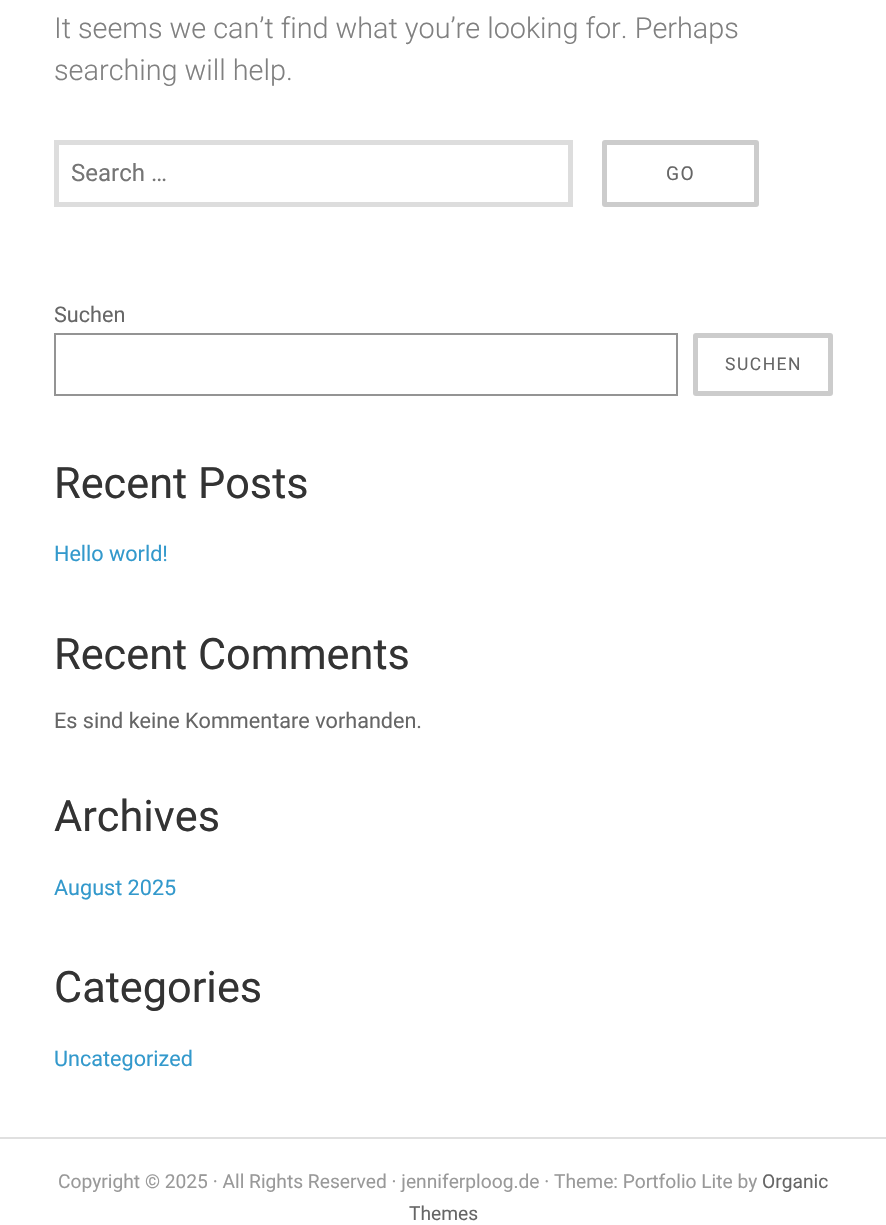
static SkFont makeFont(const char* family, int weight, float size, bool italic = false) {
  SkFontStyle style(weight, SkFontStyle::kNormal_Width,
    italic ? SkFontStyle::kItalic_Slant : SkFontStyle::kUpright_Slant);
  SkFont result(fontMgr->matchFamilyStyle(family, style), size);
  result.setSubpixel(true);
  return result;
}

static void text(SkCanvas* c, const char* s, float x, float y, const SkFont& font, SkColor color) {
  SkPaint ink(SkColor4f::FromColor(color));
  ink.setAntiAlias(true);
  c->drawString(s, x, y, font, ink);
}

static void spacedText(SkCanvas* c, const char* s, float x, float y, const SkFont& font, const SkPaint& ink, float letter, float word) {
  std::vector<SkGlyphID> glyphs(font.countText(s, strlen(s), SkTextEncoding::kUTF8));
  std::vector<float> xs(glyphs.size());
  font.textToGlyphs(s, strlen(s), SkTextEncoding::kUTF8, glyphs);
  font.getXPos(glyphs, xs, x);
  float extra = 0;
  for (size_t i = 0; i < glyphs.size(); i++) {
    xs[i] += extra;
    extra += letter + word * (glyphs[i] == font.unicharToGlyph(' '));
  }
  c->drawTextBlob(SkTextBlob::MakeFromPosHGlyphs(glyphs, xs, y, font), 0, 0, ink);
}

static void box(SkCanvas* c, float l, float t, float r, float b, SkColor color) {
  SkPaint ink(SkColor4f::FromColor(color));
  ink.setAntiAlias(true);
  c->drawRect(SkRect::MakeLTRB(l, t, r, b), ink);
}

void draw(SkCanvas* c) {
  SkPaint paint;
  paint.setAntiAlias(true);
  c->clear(0xffffffff);
  SkFont face1 = makeFont("Roboto", 300, 28.8f);
  text(c, "It seems we can’t find what you’re looking for. Perhaps", 54, 38, face1, 0xff808080);
  text(c, "searching will help.", 54, 80, face1, 0xff808080);
  paint.setStyle(SkPaint::kStroke_Style);
  paint.setStrokeWidth(5);
  paint.setColor(0xffdddddd);
  c->drawRect(SkRect::MakeLTRB(56.5f, 142.5f, 570.5f, 204.5f), paint);
  SkFont face2 = makeFont("Roboto", 400, 24);
  text(c, "Search …", 71, 181, face2, 0xff757575);
  paint.setColor(0xffcccccc);
  c->drawRoundRect(SkRect::MakeLTRB(604.5f, 142.5f, 756.5f, 204.5f), 0.5f, 0.5f, paint);
  SkFont face3 = makeFont("Roboto", 400, 19.2f);
  paint.setStyle(SkPaint::kFill_Style);
  paint.setColor(0xff666666);
  spacedText(c, "GO", 666, 180, face3, paint, 1.5f, 0);
  SkFont face4 = makeFont("Roboto", 400, 21.6f);
  text(c, "Suchen", 54, 322, face4, 0xff666666);
  paint.setStyle(SkPaint::kStroke_Style);
  paint.setStrokeWidth(2);
  paint.setColor(0xff949494);
  c->drawRect(SkRect::MakeLTRB(55, 334, 677, 395), paint);
  paint.setStrokeWidth(5);
  paint.setColor(0xffcccccc);
  c->drawRoundRect(SkRect::MakeLTRB(695.5f, 335.5f, 830.5f, 393.5f), 0.5f, 0.5f, paint);
  SkFont face5 = makeFont("Roboto", 400, 17.5f);
  paint.setStyle(SkPaint::kFill_Style);
  paint.setColor(0xff666666);
  spacedText(c, "SUCHEN", 725, 370, face5, paint, 1.5f, 0);
  SkFont face6 = makeFont("Roboto", 400, 43.25f);
  text(c, "Recent Posts", 54, 498, face6, 0xff333333);
  text(c, "Hello world!", 54, 561, face4, 0xff3399cc);
  text(c, "Recent Comments", 54, 669, face6, 0xff333333);
  text(c, "Es sind keine Kommentare vorhanden.", 54, 728, face4, 0xff666666);
  text(c, "Archives", 54, 831, face6, 0xff333333);
  text(c, "August 2025", 54, 895, face4, 0xff3399cc);
  text(c, "Categories", 54, 1002, face6, 0xff333333);
  text(c, "Uncategorized", 54, 1066, face4, 0xff3399cc);
  box(c, 0, 1137, 886, 1139, 0xffe0e0e0);
  text(c, "Copyright © 2025 · All Rights Reserved · jenniferploog.de · Theme: Portfolio Lite by", 58, 1188, face3, 0xff999999);
  text(c, "Organic", 762, 1188, face3, 0xff666666);
  text(c, "Themes", 409, 1220, face3, 0xff666666);
}
